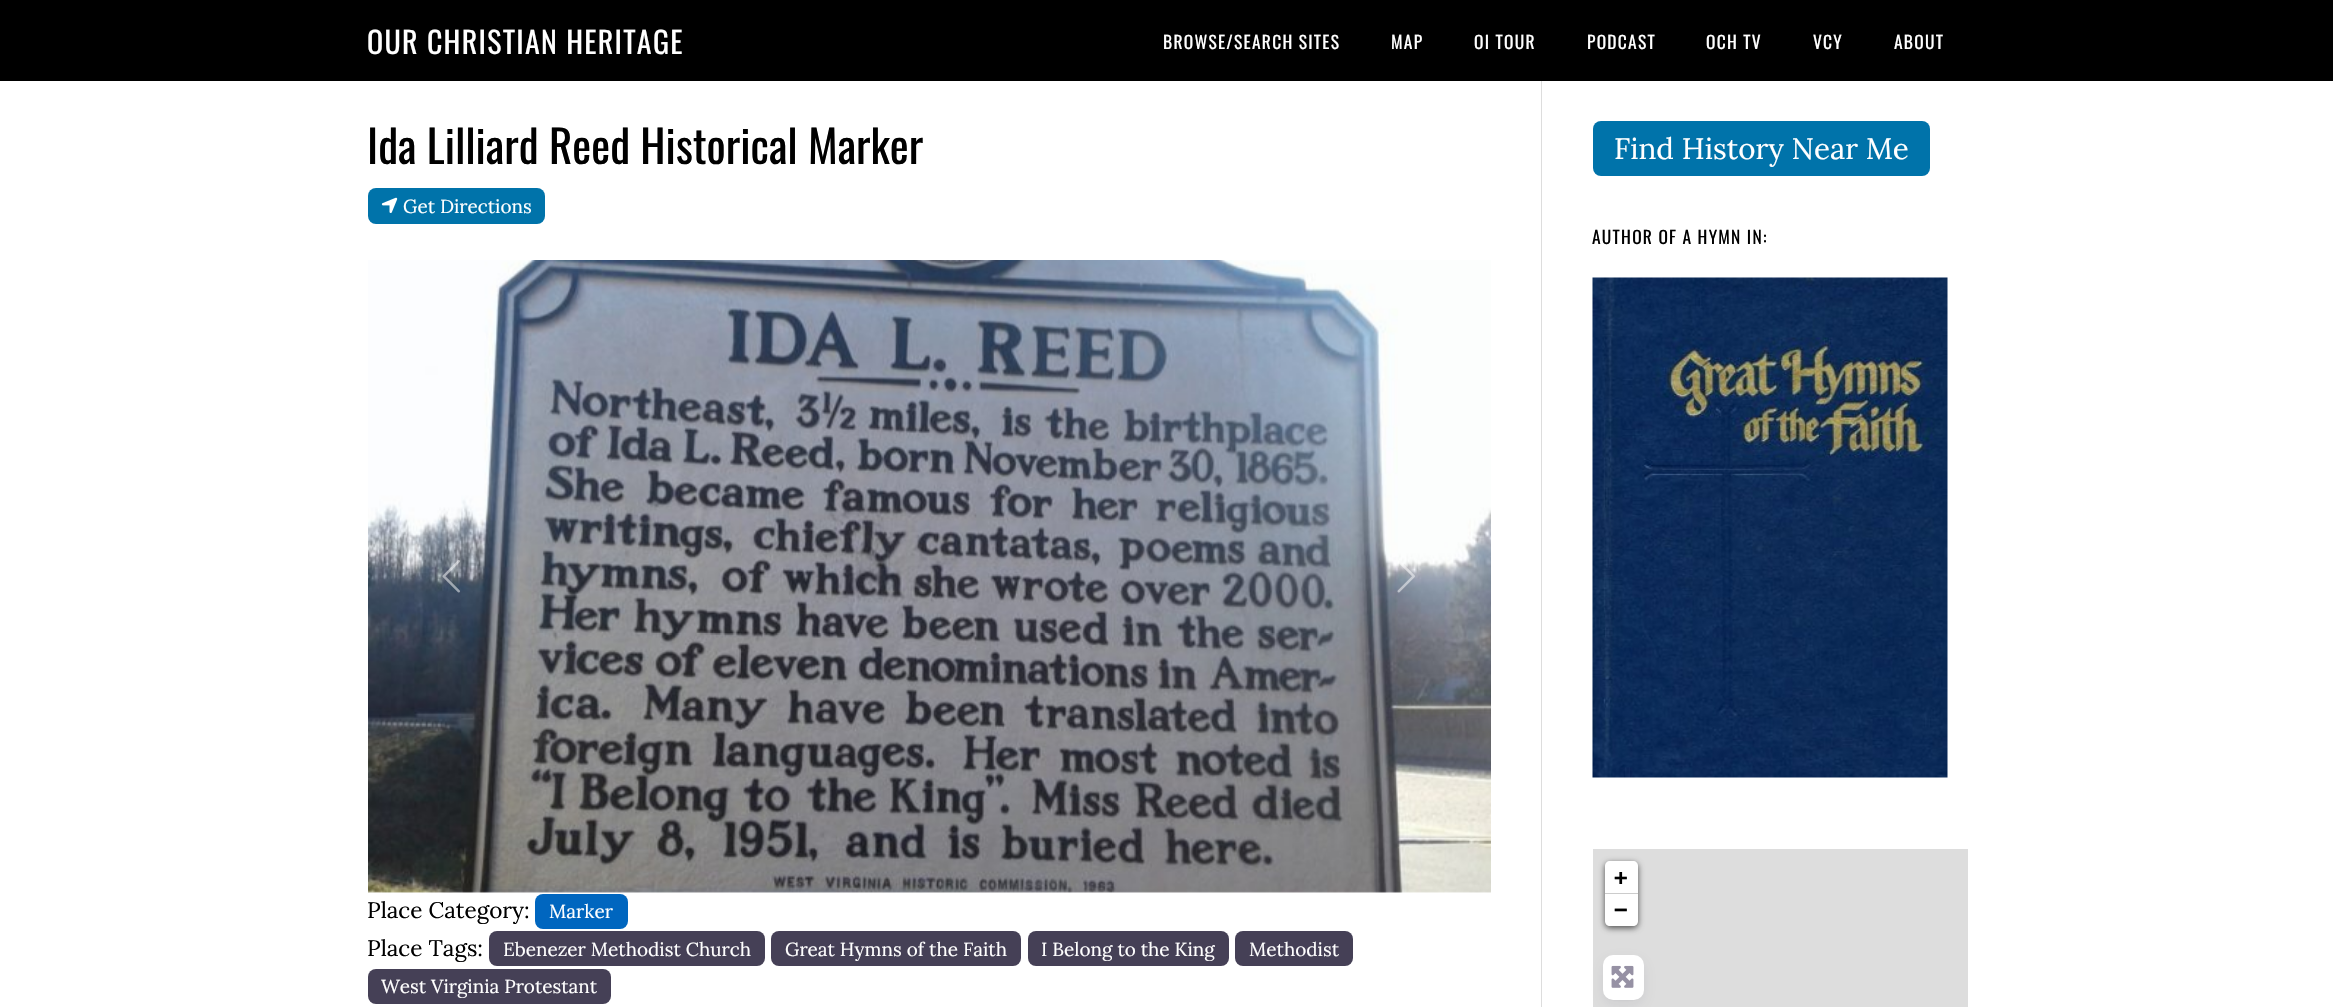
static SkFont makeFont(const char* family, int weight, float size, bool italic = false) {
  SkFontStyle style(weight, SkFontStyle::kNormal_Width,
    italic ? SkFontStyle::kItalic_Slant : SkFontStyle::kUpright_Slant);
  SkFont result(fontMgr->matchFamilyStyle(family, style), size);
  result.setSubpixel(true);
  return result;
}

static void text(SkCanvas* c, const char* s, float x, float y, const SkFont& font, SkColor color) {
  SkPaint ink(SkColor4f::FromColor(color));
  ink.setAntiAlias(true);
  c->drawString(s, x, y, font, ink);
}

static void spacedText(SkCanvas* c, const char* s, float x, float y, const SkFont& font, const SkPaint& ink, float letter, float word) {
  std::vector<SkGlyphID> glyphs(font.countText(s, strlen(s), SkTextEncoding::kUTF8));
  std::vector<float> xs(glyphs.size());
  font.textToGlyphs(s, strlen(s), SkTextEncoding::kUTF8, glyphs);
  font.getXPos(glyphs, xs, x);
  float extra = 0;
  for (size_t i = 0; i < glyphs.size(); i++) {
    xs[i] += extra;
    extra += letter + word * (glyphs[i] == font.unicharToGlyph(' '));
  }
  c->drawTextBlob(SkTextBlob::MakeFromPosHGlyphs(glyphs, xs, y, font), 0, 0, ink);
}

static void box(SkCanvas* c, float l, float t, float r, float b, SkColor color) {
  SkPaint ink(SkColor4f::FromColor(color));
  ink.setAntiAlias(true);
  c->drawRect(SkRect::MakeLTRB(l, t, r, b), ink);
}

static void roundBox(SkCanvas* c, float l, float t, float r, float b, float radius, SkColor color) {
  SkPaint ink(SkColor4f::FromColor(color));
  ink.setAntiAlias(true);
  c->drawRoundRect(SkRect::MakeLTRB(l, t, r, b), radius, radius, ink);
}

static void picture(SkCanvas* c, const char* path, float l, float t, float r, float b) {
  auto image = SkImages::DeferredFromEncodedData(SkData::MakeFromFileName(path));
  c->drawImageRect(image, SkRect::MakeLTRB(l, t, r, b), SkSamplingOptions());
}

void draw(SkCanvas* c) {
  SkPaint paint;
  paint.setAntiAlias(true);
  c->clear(0xffffffff);
  box(c, 0, 0, 2333, 81, 0xff000000);
  SkFont face1 = makeFont("Oswald", 400, 30);
  paint.setColor(0xffffffff);
  spacedText(c, "OUR CHRISTIAN HERITAGE", 367, 54, face1, paint, 1.25f, 0);
  SkFont face2 = makeFont("Oswald", 400, 17.5f);
  spacedText(c, "BROWSE/SEARCH SITES", 1163, 49, face2, paint, 1.25f, 0);
  spacedText(c, "MAP", 1391, 49, face2, paint, 1.25f, 0);
  spacedText(c, "OI TOUR", 1474, 49, face2, paint, 1.25f, 0);
  spacedText(c, "PODCAST", 1587, 49, face2, paint, 1.25f, 0);
  spacedText(c, "OCH TV", 1706, 49, face2, paint, 1.25f, 0);
  spacedText(c, "VCY", 1813, 49, face2, paint, 1.25f, 0);
  spacedText(c, "ABOUT", 1894, 49, face2, paint, 1.25f, 0);
  box(c, 1541, 81, 1542, 1007, 0xffdddddd);
  SkFont face3 = makeFont("Oswald", 400, 45);
  text(c, "Ida Lilliard Reed Historical Marker", 367, 164, face3, 0xff000000);
  roundBox(c, 368, 188, 545, 224, 8, 0xff0073aa);
  picture(c, "img_01.png", 381, 197, 398, 213);
  SkFont face4 = makeFont("Lora", 400, 18.9f);
  text(c, "Get Directions", 403, 213, face4, 0xffffffff);
  picture(c, "img_02.png", 368, 260, 1491, 893);
  picture(c, "img_03.png", 442, 560, 460, 593);
  picture(c, "img_04.png", 1397, 561, 1415, 593);
  SkFont face5 = makeFont("Lora", 400, 22.5f);
  text(c, "Place Category:", 367, 918, face5, 0xff000000);
  roundBox(c, 535, 894, 628, 929, 8, 0xff0066bf);
  text(c, "Marker", 549, 918, face4, 0xffffffff);
  text(c, "Place Tags:", 367, 956, face5, 0xff000000);
  roundBox(c, 489, 931, 765, 966, 8, 0xff454056);
  text(c, "Ebenezer Methodist Church", 503, 956, face4, 0xffffffff);
  roundBox(c, 771, 931, 1021, 966, 8, 0xff454056);
  text(c, "Great Hymns of the Faith", 785, 956, face4, 0xffffffff);
  roundBox(c, 1028, 931, 1229, 966, 8, 0xff454056);
  text(c, "I Belong to the King", 1041, 956, face4, 0xffffffff);
  roundBox(c, 1235, 931, 1353, 966, 8, 0xff454056);
  text(c, "Methodist", 1249, 956, face4, 0xffffffff);
  roundBox(c, 368, 969, 611, 1004, 8, 0xff454056);
  text(c, "West Virginia Protestant", 381, 993, face4, 0xffffffff);
  roundBox(c, 1593, 121, 1930, 176, 8, 0xff0073aa);
  SkFont face6 = makeFont("Lora", 400, 29.5f);
  text(c, "Find History Near Me", 1614, 159, face6, 0xffffffff);
  paint.setColor(0xff000000);
  spacedText(c, "AUTHOR OF A HYMN IN:", 1592, 244, face2, paint, 1.25f, 0);
  picture(c, "img_05.png", 1592, 277, 1948, 778);
  box(c, 1593, 849, 1968, 1007, 0xffdddddd);
  paint.setColor(0xa6000000);
  paint.setMaskFilter(SkMaskFilter::MakeBlur(kNormal_SkBlurStyle, 3));
  c->drawRoundRect(SkRect::MakeLTRB(1605, 863, 1638, 928), 5, 5, paint);
  paint.setMaskFilter(nullptr);
  paint.setColor(0xffffffff);
  c->drawPath(SkPathBuilder().moveTo(1610, 861).lineTo(1633, 861).cubicTo(1636, 861, 1638, 863, 1638, 866).lineTo(1638, 894).lineTo(1605, 894).lineTo(1605, 866).cubicTo(1605, 863, 1607, 861, 1610, 861).close().detach(), paint);
  box(c, 1605, 893, 1638, 894, 0xffcccccc);
  SkFont face7 = makeFont("DejaVu Sans Mono", 700, 22.5f);
  text(c, "+", 1614, 885, face7, 0xff000000);
  c->drawPath(SkPathBuilder().moveTo(1605, 894).lineTo(1638, 894).lineTo(1638, 921).cubicTo(1638, 924, 1636, 926, 1633, 926).lineTo(1610, 926).cubicTo(1607, 926, 1605, 924, 1605, 921).close().detach(), paint);
  text(c, "−", 1614, 917, face7, 0xff000000);
  paint.setColor(0x141f1b2d);
  paint.setMaskFilter(SkMaskFilter::MakeBlur(kNormal_SkBlurStyle, 7.5f));
  c->drawRoundRect(SkRect::MakeLTRB(1603, 960, 1644, 1005), 10, 10, paint);
  paint.setMaskFilter(nullptr);
  paint.setMaskFilter(SkMaskFilter::MakeBlur(kNormal_SkBlurStyle, 1));
  c->drawRoundRect(SkRect::MakeLTRB(1605, 960, 1641, 1000), 8, 8, paint);
  paint.setMaskFilter(nullptr);
  roundBox(c, 1603, 955, 1644, 1000, 10, 0xffffffff);
  picture(c, "img_06.png", 1611, 965, 1634, 988);
}
